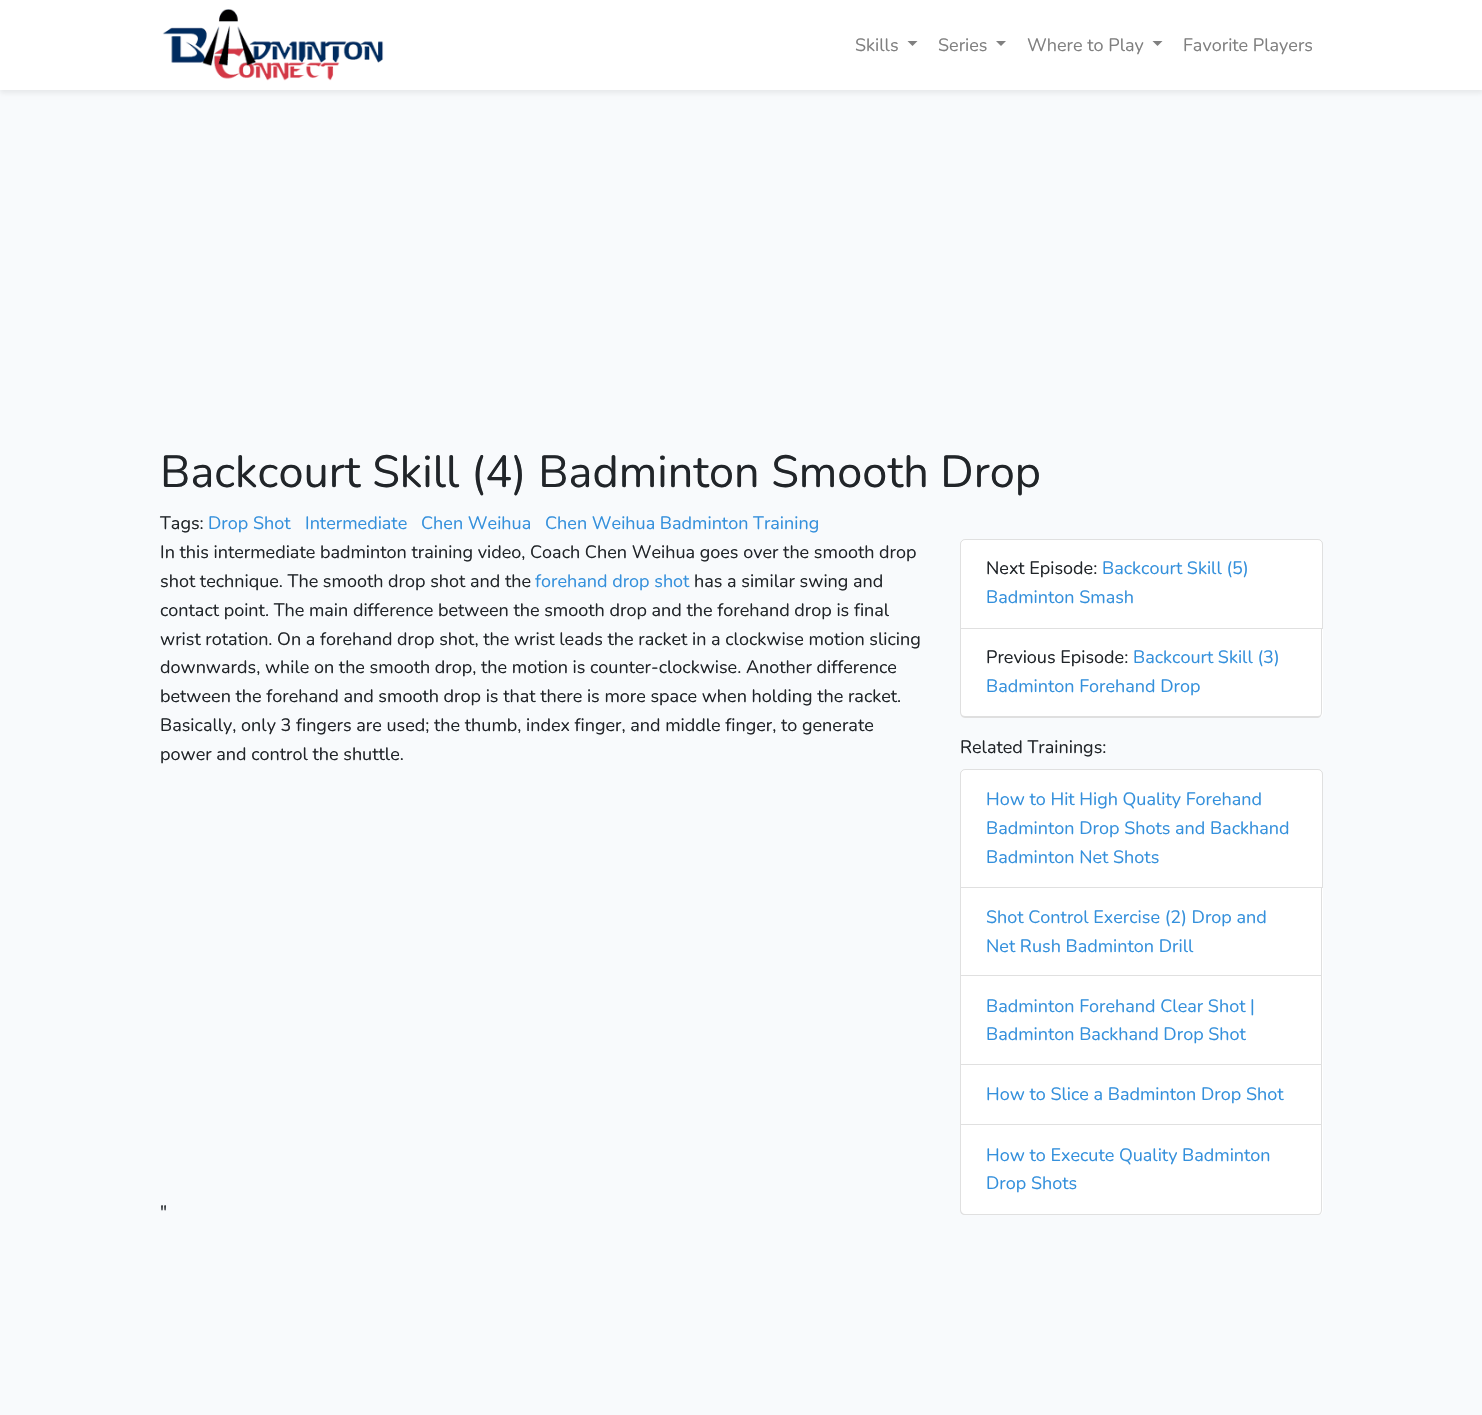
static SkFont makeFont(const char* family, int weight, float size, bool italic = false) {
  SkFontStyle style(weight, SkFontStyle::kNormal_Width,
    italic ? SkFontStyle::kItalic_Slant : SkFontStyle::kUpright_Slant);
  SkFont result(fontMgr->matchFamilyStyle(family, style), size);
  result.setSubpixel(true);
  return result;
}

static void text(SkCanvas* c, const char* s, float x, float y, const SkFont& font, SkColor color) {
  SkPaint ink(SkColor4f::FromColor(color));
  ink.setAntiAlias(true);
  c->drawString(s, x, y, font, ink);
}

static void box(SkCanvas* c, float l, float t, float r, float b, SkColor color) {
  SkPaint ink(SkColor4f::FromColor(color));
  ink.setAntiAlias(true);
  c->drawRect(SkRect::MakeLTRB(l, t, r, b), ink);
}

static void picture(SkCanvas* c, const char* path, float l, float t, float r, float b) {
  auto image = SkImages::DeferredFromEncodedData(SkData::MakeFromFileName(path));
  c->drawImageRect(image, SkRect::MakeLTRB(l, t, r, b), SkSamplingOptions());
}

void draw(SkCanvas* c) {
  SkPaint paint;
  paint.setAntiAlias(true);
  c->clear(0xfff8fafc);
  paint.setColor(0x12000000);
  paint.setMaskFilter(SkMaskFilter::MakeBlur(kNormal_SkBlurStyle, 2.5f));
  c->drawRect(SkRect::MakeLTRB(0, 3, 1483, 93), paint);
  paint.setMaskFilter(nullptr);
  box(c, 0, 0, 1482, 90, 0xffffffff);
  picture(c, "img_01.png", 162, 9, 384, 81);
  SkFont face1 = makeFont("Nunito", 200, 18);
  text(c, "Skills", 855, 51, face1, 0xff808080);
  paint.setColor(0xff808080);
  c->drawPath(SkPathBuilder().moveTo(907.5f, 41).lineTo(917.5f, 41).lineTo(912.5f, 46).close().detach(), paint);
  text(c, "Series", 938, 51, face1, 0xff808080);
  c->drawPath(SkPathBuilder().moveTo(996, 41).lineTo(1006, 41).lineTo(1001, 46).close().detach(), paint);
  text(c, "Where to Play", 1027, 51, face1, 0xff808080);
  c->drawPath(SkPathBuilder().moveTo(1152.5f, 41).lineTo(1162.5f, 41).lineTo(1157.5f, 46).close().detach(), paint);
  text(c, "Favorite Players", 1183, 51, face1, 0xff808080);
  SkFont face2 = makeFont("Nunito", 200, 45);
  text(c, "Backcourt Skill (4) Badminton Smooth Drop", 160, 487, face2, 0xff212529);
  text(c, "Tags:", 160, 529, face1, 0xff212529);
  text(c, "Drop Shot", 208, 529, face1, 0xff3490dc);
  text(c, "Intermediate", 305, 529, face1, 0xff3490dc);
  text(c, "Chen Weihua", 421, 529, face1, 0xff3490dc);
  text(c, "Chen Weihua Badminton Training", 545, 529, face1, 0xff3490dc);
  text(c, "In this intermediate badminton training video, Coach Chen Weihua goes over the smooth drop", 160, 558, face1, 0xff212529);
  text(c, "shot technique. The smooth drop shot and the", 160, 587, face1, 0xff212529);
  text(c, "forehand drop shot", 535, 587, face1, 0xff3490dc);
  text(c, "has a similar swing and", 694, 587, face1, 0xff212529);
  text(c, "contact point. The main difference between the smooth drop and the forehand drop is final", 160, 616, face1, 0xff212529);
  text(c, "wrist rotation. On a forehand drop shot, the wrist leads the racket in a clockwise motion slicing", 160, 645, face1, 0xff212529);
  text(c, "downwards, while on the smooth drop, the motion is counter-clockwise. Another difference", 160, 673, face1, 0xff212529);
  text(c, "between the forehand and smooth drop is that there is more space when holding the racket.", 160, 702, face1, 0xff212529);
  text(c, "Basically, only 3 fingers are used; the thumb, index finger, and middle finger, to generate", 160, 731, face1, 0xff212529);
  text(c, "power and control the shuttle.", 160, 760, face1, 0xff212529);
  text(c, "\"", 160, 1218, face1, 0xff212529);
  paint.setColor(0xffffffff);
  c->drawPath(SkPathBuilder().moveTo(965, 539).lineTo(1318, 539).cubicTo(1321, 539, 1323, 541, 1323, 544).lineTo(1323, 629).lineTo(960, 629).lineTo(960, 544).cubicTo(960, 541, 962, 539, 965, 539).close().detach(), paint);
  paint.setStyle(SkPaint::kStroke_Style);
  paint.setStrokeWidth(1);
  paint.setColor(0x1f000000);
  c->drawPath(SkPathBuilder().moveTo(965, 539.5f).lineTo(1318, 539.5f).cubicTo(1320.5f, 539.5f, 1322.5f, 541.5f, 1322.5f, 544).lineTo(1322.5f, 628.5f).lineTo(960.5f, 628.5f).lineTo(960.5f, 544).cubicTo(960.5f, 541.5f, 962.5f, 539.5f, 965, 539.5f).close().detach(), paint);
  text(c, "Next Episode:", 986, 574, face1, 0xff212529);
  text(c, "Backcourt Skill (5)", 1102, 574, face1, 0xff3490dc);
  text(c, "Badminton Smash", 986, 603, face1, 0xff3490dc);
  paint.setStyle(SkPaint::kFill_Style);
  paint.setColor(0xffffffff);
  c->drawPath(SkPathBuilder().moveTo(960, 629).lineTo(1323, 629).lineTo(1323, 713).cubicTo(1323, 716, 1321, 718, 1318, 718).lineTo(965, 718).cubicTo(962, 718, 960, 716, 960, 713).close().detach(), paint);
  paint.setColor(0xffdfdfdf);
  c->drawPath(SkPathBuilder(SkPathFillType::kEvenOdd).moveTo(960, 629).lineTo(1322, 629).lineTo(1322, 712).cubicTo(1322, 715, 1320, 718, 1318, 718).lineTo(965, 718).cubicTo(962, 718, 960, 715, 960, 712).close().moveTo(961, 629).lineTo(1321, 629).lineTo(1321, 712).cubicTo(1321, 715, 1320, 716, 1318, 716).lineTo(965, 716).cubicTo(963, 716, 961, 715, 961, 712).close().detach(), paint);
  text(c, "Previous Episode:", 986, 663, face1, 0xff212529);
  text(c, "Backcourt Skill (3)", 1133, 663, face1, 0xff3490dc);
  text(c, "Badminton Forehand Drop", 986, 692, face1, 0xff3490dc);
  text(c, "Related Trainings:", 960, 753, face1, 0xff212529);
  paint.setColor(0xffffffff);
  c->drawPath(SkPathBuilder().moveTo(965, 769).lineTo(1318, 769).cubicTo(1321, 769, 1323, 771, 1323, 774).lineTo(1323, 888).lineTo(960, 888).lineTo(960, 774).cubicTo(960, 771, 962, 769, 965, 769).close().detach(), paint);
  paint.setStyle(SkPaint::kStroke_Style);
  paint.setColor(0x1f000000);
  c->drawPath(SkPathBuilder().moveTo(965, 769.5f).lineTo(1318, 769.5f).cubicTo(1320.5f, 769.5f, 1322.5f, 771.5f, 1322.5f, 774).lineTo(1322.5f, 887.5f).lineTo(960.5f, 887.5f).lineTo(960.5f, 774).cubicTo(960.5f, 771.5f, 962.5f, 769.5f, 965, 769.5f).close().detach(), paint);
  text(c, "How to Hit High Quality Forehand", 986, 805, face1, 0xff3490dc);
  text(c, "Badminton Drop Shots and Backhand", 986, 834, face1, 0xff3490dc);
  text(c, "Badminton Net Shots", 986, 863, face1, 0xff3490dc);
  box(c, 960, 888, 1323, 1125, 0xffffffff);
  paint.setStyle(SkPaint::kFill_Style);
  paint.setColor(0xffdfdfdf);
  c->drawPath(SkPathBuilder().moveTo(1322, 888).lineTo(1322, 976).lineTo(1321, 975).lineTo(1321, 888).close().detach(), paint);
  paint.setColor(0x1f000000);
  c->drawPath(SkPathBuilder().moveTo(1322, 976).lineTo(960, 976).lineTo(961, 975).lineTo(1321, 975).close().detach(), paint);
  c->drawPath(SkPathBuilder().moveTo(960, 976).lineTo(960, 888).lineTo(961, 888).lineTo(961, 975).close().detach(), paint);
  text(c, "Shot Control Exercise (2) Drop and", 986, 923, face1, 0xff3490dc);
  text(c, "Net Rush Badminton Drill", 986, 952, face1, 0xff3490dc);
  paint.setColor(0xffdfdfdf);
  c->drawPath(SkPathBuilder().moveTo(1322, 976).lineTo(1322, 1065).lineTo(1321, 1064).lineTo(1321, 976).close().detach(), paint);
  paint.setColor(0x1f000000);
  c->drawPath(SkPathBuilder().moveTo(1322, 1065).lineTo(960, 1065).lineTo(961, 1064).lineTo(1321, 1064).close().detach(), paint);
  c->drawPath(SkPathBuilder().moveTo(960, 1065).lineTo(960, 976).lineTo(961, 976).lineTo(961, 1064).close().detach(), paint);
  text(c, "Badminton Forehand Clear Shot |", 986, 1012, face1, 0xff3490dc);
  text(c, "Badminton Backhand Drop Shot", 986, 1040, face1, 0xff3490dc);
  paint.setColor(0xffdfdfdf);
  c->drawPath(SkPathBuilder().moveTo(1322, 1065).lineTo(1322, 1125).lineTo(1321, 1124).lineTo(1321, 1065).close().detach(), paint);
  paint.setColor(0x1f000000);
  c->drawPath(SkPathBuilder().moveTo(1322, 1125).lineTo(960, 1125).lineTo(961, 1124).lineTo(1321, 1124).close().detach(), paint);
  c->drawPath(SkPathBuilder().moveTo(960, 1125).lineTo(960, 1065).lineTo(961, 1065).lineTo(961, 1124).close().detach(), paint);
  text(c, "How to Slice a Badminton Drop Shot", 986, 1100, face1, 0xff3490dc);
  paint.setColor(0xffffffff);
  c->drawPath(SkPathBuilder().moveTo(960, 1125).lineTo(1323, 1125).lineTo(1323, 1210).cubicTo(1323, 1213, 1321, 1215, 1318, 1215).lineTo(965, 1215).cubicTo(962, 1215, 960, 1213, 960, 1210).close().detach(), paint);
  paint.setColor(0x1f000000);
  c->drawPath(SkPathBuilder(SkPathFillType::kEvenOdd).moveTo(960, 1125).lineTo(1322, 1125).lineTo(1322, 1210).cubicTo(1322, 1213, 1320, 1215, 1318, 1215).lineTo(965, 1215).cubicTo(962, 1215, 960, 1213, 960, 1210).close().moveTo(961, 1125).lineTo(1321, 1125).lineTo(1321, 1210).cubicTo(1321, 1212, 1320, 1214, 1318, 1214).lineTo(965, 1214).cubicTo(963, 1214, 961, 1212, 961, 1210).close().detach(), paint);
  text(c, "How to Execute Quality Badminton", 986, 1161, face1, 0xff3490dc);
  text(c, "Drop Shots", 986, 1189, face1, 0xff3490dc);
}
